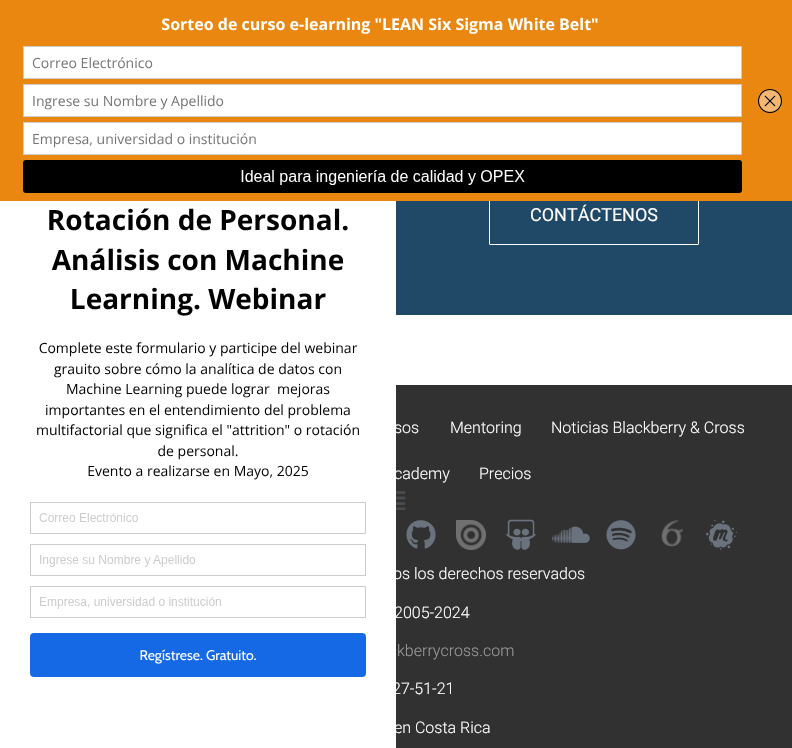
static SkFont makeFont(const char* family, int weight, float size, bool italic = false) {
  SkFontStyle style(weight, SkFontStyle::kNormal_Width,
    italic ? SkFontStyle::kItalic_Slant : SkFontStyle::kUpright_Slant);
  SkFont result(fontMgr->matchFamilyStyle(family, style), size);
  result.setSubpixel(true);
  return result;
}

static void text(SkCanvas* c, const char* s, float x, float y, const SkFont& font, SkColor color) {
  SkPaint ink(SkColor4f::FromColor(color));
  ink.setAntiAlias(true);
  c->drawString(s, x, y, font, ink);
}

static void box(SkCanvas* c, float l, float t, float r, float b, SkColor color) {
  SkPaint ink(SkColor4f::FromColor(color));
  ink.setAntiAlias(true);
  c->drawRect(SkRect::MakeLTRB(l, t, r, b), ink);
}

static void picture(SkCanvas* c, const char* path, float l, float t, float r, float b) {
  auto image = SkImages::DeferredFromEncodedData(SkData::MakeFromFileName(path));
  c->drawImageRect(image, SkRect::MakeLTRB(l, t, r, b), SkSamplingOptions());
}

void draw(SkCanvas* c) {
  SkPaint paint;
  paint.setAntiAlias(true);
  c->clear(0xffffffff);
  box(c, 396, 201, 792, 315, 0xff204867);
  paint.setStyle(SkPaint::kStroke_Style);
  paint.setStrokeWidth(1);
  paint.setColor(0xffffffff);
  c->drawRoundRect(SkRect::MakeLTRB(489.5f, 185.5f, 698.5f, 244.5f), 0.5f, 0.5f, paint);
  picture(c, "img_01.png", 0, 0, 792, 201);
  box(c, 396, 385, 792, 748, 0xff313131);
  SkFont face1 = makeFont("Roboto", 300, 16);
  text(c, "sos", 394, 433, face1, 0xffffffff);
  text(c, "cademy", 394, 479, face1, 0xffffffff);
  text(c, "os los derechos reservados", 393, 579, face1, 0xffffffff);
  text(c, "2005-2024", 394, 618, face1, 0xffffffff);
  text(c, "27-51-21", 392, 694, face1, 0xffffffff);
  text(c, "en Costa Rica", 394, 733, face1, 0xffffffff);
  picture(c, "img_02.png", 0, 201, 396, 748);
  SkFont face2 = makeFont("Roboto", 400, 18);
  text(c, "CONTÁCTENOS", 530, 221, face2, 0xffffffff);
  text(c, "Mentoring", 450, 433, face1, 0xffffffff);
  text(c, "Noticias Blackberry & Cross", 551, 433, face1, 0xffffffff);
  text(c, "Precios", 479, 479, face1, 0xffffffff);
  picture(c, "img_03.png", 396, 491, 406, 510);
  picture(c, "img_04.png", 406, 520, 436, 549);
  picture(c, "img_05.png", 456, 520, 486, 550);
  picture(c, "img_06.png", 506, 519, 536, 550);
  picture(c, "img_07.png", 552, 526, 590, 543);
  picture(c, "img_08.png", 606, 520, 636, 550);
  picture(c, "img_09.png", 661, 520, 683, 547);
  picture(c, "img_10.png", 706, 519, 737, 550);
  text(c, "kberrycross.com", 397, 656, face1, 0xff999999);
}
